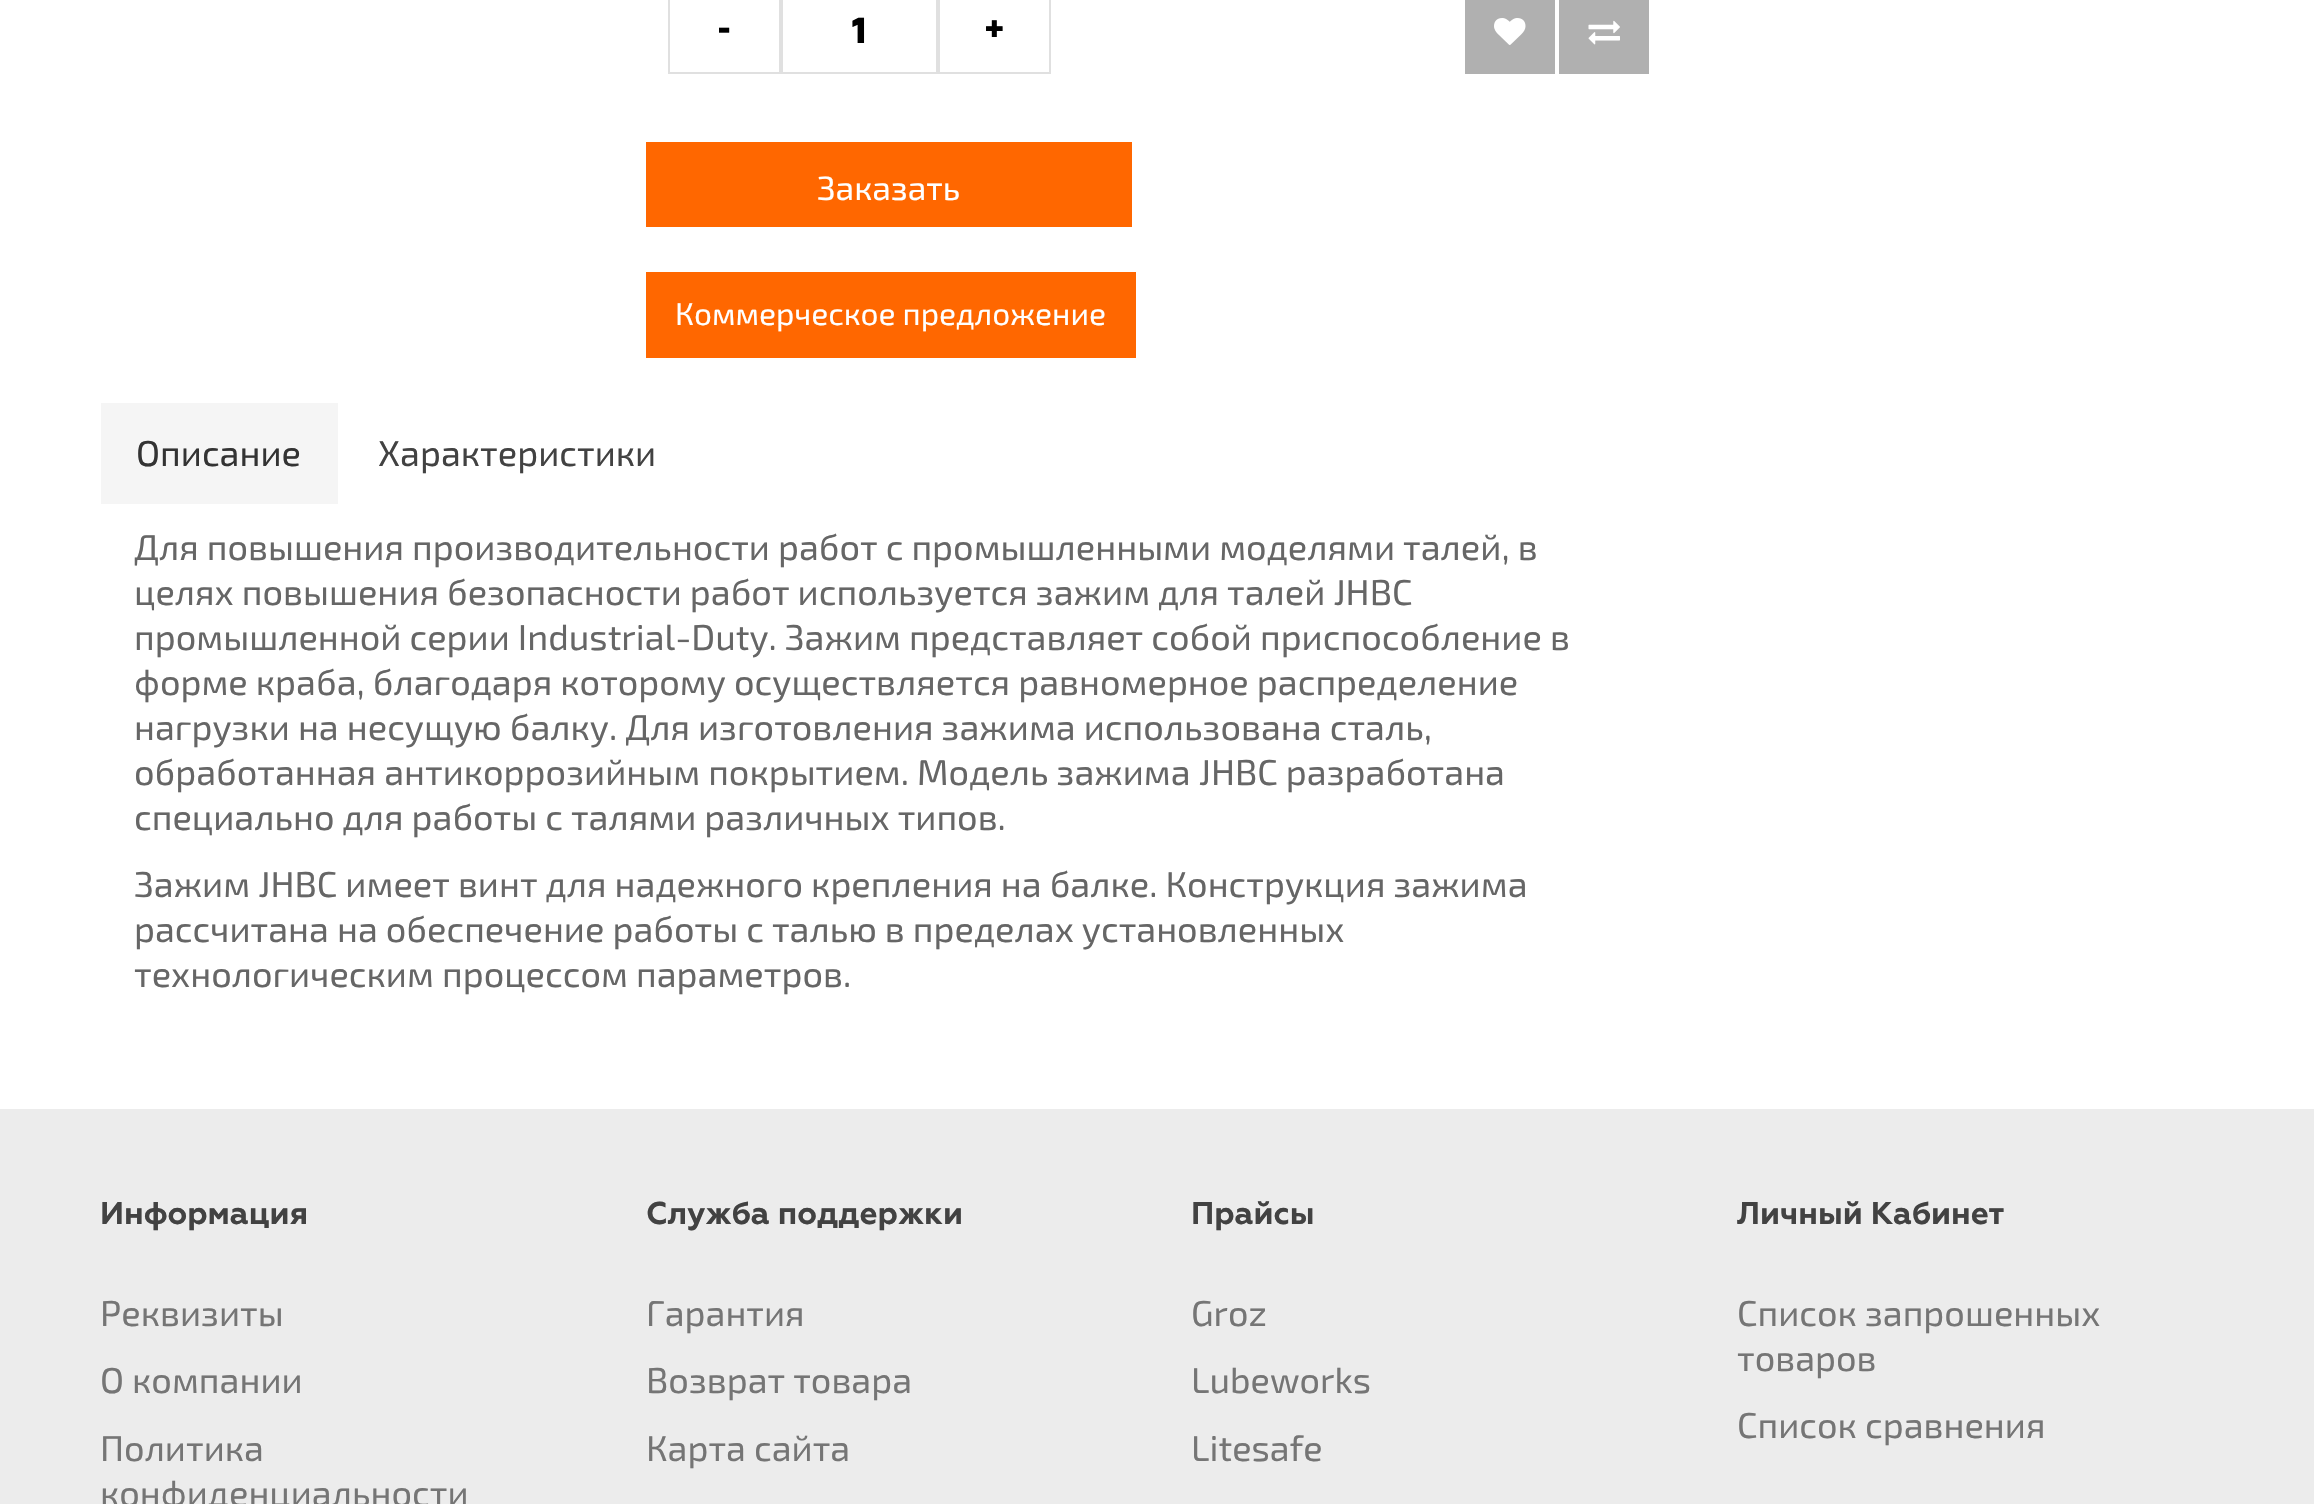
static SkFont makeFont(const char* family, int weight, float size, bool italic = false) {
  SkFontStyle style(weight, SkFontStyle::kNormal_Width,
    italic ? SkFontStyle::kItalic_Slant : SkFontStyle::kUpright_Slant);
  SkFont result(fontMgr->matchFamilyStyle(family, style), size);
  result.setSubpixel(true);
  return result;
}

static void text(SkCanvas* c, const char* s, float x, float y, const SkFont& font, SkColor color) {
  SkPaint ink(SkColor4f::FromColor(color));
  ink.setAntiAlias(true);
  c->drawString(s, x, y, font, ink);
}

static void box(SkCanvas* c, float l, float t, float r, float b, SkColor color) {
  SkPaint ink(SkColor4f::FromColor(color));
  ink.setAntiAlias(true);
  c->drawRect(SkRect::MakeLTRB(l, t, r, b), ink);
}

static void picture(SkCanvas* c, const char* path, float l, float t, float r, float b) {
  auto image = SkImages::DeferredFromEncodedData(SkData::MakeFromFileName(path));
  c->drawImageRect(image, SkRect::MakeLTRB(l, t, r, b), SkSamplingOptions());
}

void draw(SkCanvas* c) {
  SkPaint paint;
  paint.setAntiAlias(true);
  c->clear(0xffffffff);
  paint.setStyle(SkPaint::kStroke_Style);
  paint.setStrokeWidth(2);
  paint.setColor(0xffe0e0e0);
  c->drawRect(SkRect::MakeLTRB(669, -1, 780, 73), paint);
  SkFont face1 = makeFont("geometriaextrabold", 800, 31.5f);
  text(c, "-", 716, 39, face1, 0xff000000);
  c->drawRect(SkRect::MakeLTRB(782, -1, 937, 73), paint);
  SkFont face2 = makeFont("geometriaextrabold", 800, 36);
  text(c, "1", 852, 43, face2, 0xff000000);
  c->drawRect(SkRect::MakeLTRB(939, -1, 1050, 73), paint);
  text(c, "+", 984, 39, face1, 0xff000000);
  box(c, 1465, 0, 1555, 74, 0xffb0b0b0);
  picture(c, "img_01.png", 1494, 18, 1526, 45);
  box(c, 1559, 0, 1649, 74, 0xffb0b0b0);
  picture(c, "img_02.png", 1588, 20, 1620, 45);
  box(c, 646, 142, 1132, 227, 0xffff6700);
  SkFont face3 = makeFont("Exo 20", 400, 33.75f);
  text(c, "Заказать", 817, 200, face3, 0xffffffff);
  box(c, 646, 272, 1136, 358, 0xffff6700);
  SkFont face4 = makeFont("Exo 20", 400, 31.5f);
  text(c, "Коммерческое предложение", 675, 325, face4, 0xffffffff);
  box(c, 101, 403, 338, 504, 0xfff5f5f5);
  SkFont face5 = makeFont("Exo 20", 400, 36);
  text(c, "Описание", 136, 466, face5, 0xff333333);
  text(c, "Характеристики", 378, 466, face5, 0xff424242);
  text(c, "Для повышения производительности работ с промышленными моделями талей, в", 134, 560, face5, 0xff666666);
  text(c, "целях повышения безопасности работ используется зажим для талей JHBC", 134, 605, face5, 0xff666666);
  text(c, "промышленной серии Industrial-Duty. Зажим представляет собой приспособление в", 134, 650, face5, 0xff666666);
  text(c, "форме краба, благодаря которому осуществляется равномерное распределение", 134, 695, face5, 0xff666666);
  text(c, "нагрузки на несущую балку. Для изготовления зажима использована сталь,", 134, 740, face5, 0xff666666);
  text(c, "обработанная антикоррозийным покрытием. Модель зажима JHBC разработана", 134, 785, face5, 0xff666666);
  text(c, "специально для работы с талями различных типов.", 134, 830, face5, 0xff666666);
  text(c, "Зажим JHBC имеет винт для надежного крепления на балке. Конструкция зажима", 134, 897, face5, 0xff666666);
  text(c, "рассчитана на обеспечение работы с талью в пределах установленных", 134, 942, face5, 0xff666666);
  text(c, "технологическим процессом параметров.", 134, 987, face5, 0xff666666);
  box(c, 0, 1109, 2314, 1504, 0xffececec);
  SkFont face6 = makeFont("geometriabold", 700, 31.5f);
  text(c, "Информация", 100, 1224, face6, 0xff424242);
  text(c, "Реквизиты", 100, 1326, face5, 0xff757575);
  text(c, "О компании", 100, 1393, face5, 0xff757575);
  text(c, "Политика", 100, 1461, face5, 0xff757575);
  text(c, "конфиденциальности", 100, 1506, face5, 0xff757575);
  text(c, "Служба поддержки", 646, 1224, face6, 0xff424242);
  text(c, "Гарантия", 646, 1326, face5, 0xff757575);
  text(c, "Возврат товара", 646, 1393, face5, 0xff757575);
  text(c, "Карта сайта", 646, 1461, face5, 0xff757575);
  text(c, "Прайсы", 1191, 1224, face6, 0xff424242);
  text(c, "Groz", 1191, 1326, face5, 0xff757575);
  text(c, "Lubeworks", 1191, 1393, face5, 0xff757575);
  text(c, "Litesafe", 1191, 1461, face5, 0xff757575);
  text(c, "Личный Кабинет", 1737, 1224, face6, 0xff424242);
  text(c, "Список запрошенных", 1737, 1326, face5, 0xff757575);
  text(c, "товаров", 1737, 1371, face5, 0xff757575);
  text(c, "Список сравнения", 1737, 1438, face5, 0xff757575);
}
